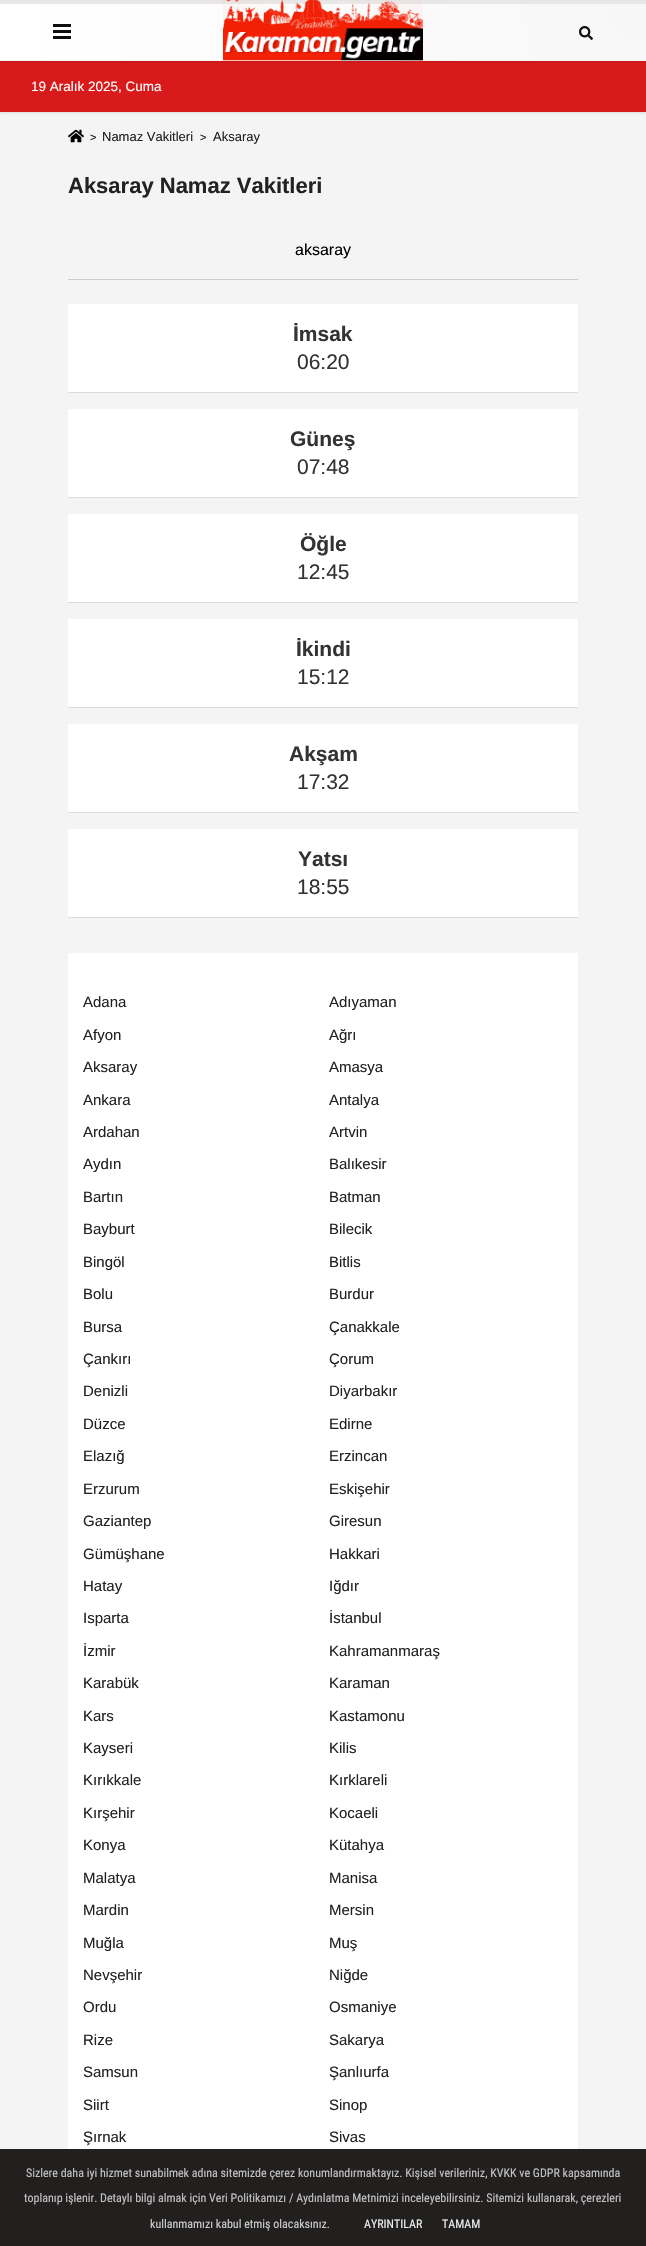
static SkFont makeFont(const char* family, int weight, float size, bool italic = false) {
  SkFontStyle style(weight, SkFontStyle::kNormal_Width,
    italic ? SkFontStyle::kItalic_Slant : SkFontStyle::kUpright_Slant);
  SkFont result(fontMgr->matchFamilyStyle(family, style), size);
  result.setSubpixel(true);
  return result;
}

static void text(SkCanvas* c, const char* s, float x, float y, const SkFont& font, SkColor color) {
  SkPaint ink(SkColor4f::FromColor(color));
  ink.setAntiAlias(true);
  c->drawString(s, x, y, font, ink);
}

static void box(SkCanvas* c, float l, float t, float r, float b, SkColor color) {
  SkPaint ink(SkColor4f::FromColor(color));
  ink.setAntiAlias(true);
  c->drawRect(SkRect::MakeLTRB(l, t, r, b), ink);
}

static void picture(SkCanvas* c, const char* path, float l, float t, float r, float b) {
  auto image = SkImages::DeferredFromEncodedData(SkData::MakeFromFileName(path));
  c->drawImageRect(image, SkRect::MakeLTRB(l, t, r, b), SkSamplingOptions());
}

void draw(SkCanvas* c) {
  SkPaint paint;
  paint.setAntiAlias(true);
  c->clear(0xfff4f4f4);
  box(c, 0, 2149, 646, 2246, 0xff221f1f);
  box(c, 0, 0, 646, 1, 0xffe6e6e6);
  paint.setColor(0x1a000000);
  paint.setMaskFilter(SkMaskFilter::MakeBlur(kNormal_SkBlurStyle, 1));
  c->drawRect(SkRect::MakeLTRB(0, 62, 646, 113), paint);
  paint.setMaskFilter(nullptr);
  box(c, 0, 61, 646, 112, 0xffd91a1a);
  paint.setMaskFilter(SkMaskFilter::MakeBlur(kNormal_SkBlurStyle, 1));
  c->drawRect(SkRect::MakeLTRB(0, 2, 646, 62), paint);
  paint.setMaskFilter(nullptr);
  {
    const SkColor colors[] = {0xfff7f7f7, 0xffffffff};
    const float stops[] = {0, 1};
    paint.setShader(SkGradientShader::MakeRadial({646, 4}, 648, colors, stops, 2, SkTileMode::kClamp));
    paint.setAlpha(255);
  }
  c->drawRect(SkRect::MakeLTRB(0, 4, 646, 60), paint);
  box(c, 0, 1, 646, 4, 0xffebe7e6);
  box(c, 0, 60, 646, 61, 0xfff5f5f5);
  box(c, 53, 24, 71, 27, 0xff0f0f0f);
  box(c, 53, 30, 71, 33, 0xff0f0f0f);
  box(c, 53, 36, 71, 39, 0xff0f0f0f);
  picture(c, "img_01.png", 223, 0, 423, 63);
  picture(c, "img_02.png", 579, 26, 593, 40);
  SkFont face1 = makeFont("Liberation Sans", 400, 13.5f);
  text(c, "19 Aralık 2025, Cuma", 31, 91, face1, 0xffffffff);
  picture(c, "img_03.png", 68, 129, 84, 143);
  SkFont face2 = makeFont("Liberation Sans", 400, 11);
  text(c, ">", 90, 141, face2, 0xff222222);
  SkFont face3 = makeFont("Liberation Sans", 400, 13);
  text(c, "Namaz Vakitleri", 102, 141, face3, 0xff222222);
  text(c, ">", 200, 141, face2, 0xff222222);
  text(c, "Aksaray", 213, 141, face3, 0xff222222);
  SkFont face4 = makeFont("Liberation Sans", 700, 22);
  text(c, "Aksaray Namaz Vakitleri", 68, 193, face4, 0xff222222);
  box(c, 68, 279, 578, 280, 0xffc4cbd1);
  SkFont face5 = makeFont("Liberation Sans", 400, 16);
  text(c, "aksaray", 295, 255, face5, 0xff000000);
  box(c, 68, 304, 578, 392, 0xffffffff);
  box(c, 68, 392, 578, 393, 0xffdcdcdc);
  SkFont face6 = makeFont("Liberation Sans", 700, 21);
  text(c, "İmsak", 293, 341, face6, 0xff333333);
  SkFont face7 = makeFont("Liberation Sans", 400, 21);
  text(c, "06:20", 297, 369, face7, 0xff333333);
  box(c, 68, 409, 578, 497, 0xffffffff);
  box(c, 68, 497, 578, 498, 0xffdcdcdc);
  text(c, "Güneş", 290, 446, face6, 0xff333333);
  text(c, "07:48", 297, 474, face7, 0xff333333);
  box(c, 68, 514, 578, 602, 0xffffffff);
  box(c, 68, 602, 578, 603, 0xffdcdcdc);
  text(c, "Öğle", 300, 551, face6, 0xff333333);
  text(c, "12:45", 297, 579, face7, 0xff333333);
  box(c, 68, 619, 578, 707, 0xffffffff);
  box(c, 68, 707, 578, 708, 0xffdcdcdc);
  text(c, "İkindi", 296, 656, face6, 0xff333333);
  text(c, "15:12", 297, 684, face7, 0xff333333);
  box(c, 68, 724, 578, 812, 0xffffffff);
  box(c, 68, 812, 578, 813, 0xffdcdcdc);
  text(c, "Akşam", 289, 761, face6, 0xff333333);
  text(c, "17:32", 297, 789, face7, 0xff333333);
  box(c, 68, 829, 578, 917, 0xffffffff);
  box(c, 68, 917, 578, 918, 0xffdcdcdc);
  text(c, "Yatsı", 298, 866, face6, 0xff333333);
  text(c, "18:55", 297, 894, face7, 0xff333333);
  box(c, 68, 953, 578, 2149, 0xffffffff);
  SkFont face8 = makeFont("Liberation Sans", 400, 15);
  text(c, "Adana", 83, 1007, face8, 0xff222222);
  text(c, "Adıyaman", 329, 1007, face8, 0xff222222);
  text(c, "Afyon", 83, 1040, face8, 0xff222222);
  text(c, "Ağrı", 329, 1040, face8, 0xff222222);
  text(c, "Aksaray", 83, 1072, face8, 0xff222222);
  text(c, "Amasya", 329, 1072, face8, 0xff222222);
  text(c, "Ankara", 83, 1105, face8, 0xff222222);
  text(c, "Antalya", 329, 1105, face8, 0xff222222);
  text(c, "Ardahan", 83, 1137, face8, 0xff222222);
  text(c, "Artvin", 329, 1137, face8, 0xff222222);
  text(c, "Aydın", 83, 1169, face8, 0xff222222);
  text(c, "Balıkesir", 329, 1169, face8, 0xff222222);
  text(c, "Bartın", 83, 1202, face8, 0xff222222);
  text(c, "Batman", 329, 1202, face8, 0xff222222);
  text(c, "Bayburt", 83, 1234, face8, 0xff222222);
  text(c, "Bilecik", 329, 1234, face8, 0xff222222);
  text(c, "Bingöl", 83, 1267, face8, 0xff222222);
  text(c, "Bitlis", 329, 1267, face8, 0xff222222);
  text(c, "Bolu", 83, 1299, face8, 0xff222222);
  text(c, "Burdur", 329, 1299, face8, 0xff222222);
  text(c, "Bursa", 83, 1332, face8, 0xff222222);
  text(c, "Çanakkale", 329, 1332, face8, 0xff222222);
  text(c, "Çankırı", 83, 1364, face8, 0xff222222);
  text(c, "Çorum", 329, 1364, face8, 0xff222222);
  text(c, "Denizli", 83, 1396, face8, 0xff222222);
  text(c, "Diyarbakır", 329, 1396, face8, 0xff222222);
  text(c, "Düzce", 83, 1429, face8, 0xff222222);
  text(c, "Edirne", 329, 1429, face8, 0xff222222);
  text(c, "Elazığ", 83, 1461, face8, 0xff222222);
  text(c, "Erzincan", 329, 1461, face8, 0xff222222);
  text(c, "Erzurum", 83, 1494, face8, 0xff222222);
  text(c, "Eskişehir", 329, 1494, face8, 0xff222222);
  text(c, "Gaziantep", 83, 1526, face8, 0xff222222);
  text(c, "Giresun", 329, 1526, face8, 0xff222222);
  text(c, "Gümüşhane", 83, 1559, face8, 0xff222222);
  text(c, "Hakkari", 329, 1559, face8, 0xff222222);
  text(c, "Hatay", 83, 1591, face8, 0xff222222);
  text(c, "Iğdır", 329, 1591, face8, 0xff222222);
  text(c, "Isparta", 83, 1623, face8, 0xff222222);
  text(c, "İstanbul", 329, 1623, face8, 0xff222222);
  text(c, "İzmir", 83, 1656, face8, 0xff222222);
  text(c, "Kahramanmaraş", 329, 1656, face8, 0xff222222);
  text(c, "Karabük", 83, 1688, face8, 0xff222222);
  text(c, "Karaman", 329, 1688, face8, 0xff222222);
  text(c, "Kars", 83, 1721, face8, 0xff222222);
  text(c, "Kastamonu", 329, 1721, face8, 0xff222222);
  text(c, "Kayseri", 83, 1753, face8, 0xff222222);
  text(c, "Kilis", 329, 1753, face8, 0xff222222);
  text(c, "Kırıkkale", 83, 1785, face8, 0xff222222);
  text(c, "Kırklareli", 329, 1785, face8, 0xff222222);
  text(c, "Kırşehir", 83, 1818, face8, 0xff222222);
  text(c, "Kocaeli", 329, 1818, face8, 0xff222222);
  text(c, "Konya", 83, 1850, face8, 0xff222222);
  text(c, "Kütahya", 329, 1850, face8, 0xff222222);
  text(c, "Malatya", 83, 1883, face8, 0xff222222);
  text(c, "Manisa", 329, 1883, face8, 0xff222222);
  text(c, "Mardin", 83, 1915, face8, 0xff222222);
  text(c, "Mersin", 329, 1915, face8, 0xff222222);
  text(c, "Muğla", 83, 1948, face8, 0xff222222);
  text(c, "Muş", 329, 1948, face8, 0xff222222);
  text(c, "Nevşehir", 83, 1980, face8, 0xff222222);
  text(c, "Niğde", 329, 1980, face8, 0xff222222);
  text(c, "Ordu", 83, 2012, face8, 0xff222222);
  text(c, "Osmaniye", 329, 2012, face8, 0xff222222);
  text(c, "Rize", 83, 2045, face8, 0xff222222);
  text(c, "Sakarya", 329, 2045, face8, 0xff222222);
  text(c, "Samsun", 83, 2077, face8, 0xff222222);
  text(c, "Şanlıurfa", 329, 2077, face8, 0xff222222);
  text(c, "Siirt", 83, 2110, face8, 0xff222222);
  text(c, "Sinop", 329, 2110, face8, 0xff222222);
  text(c, "Şırnak", 83, 2142, face8, 0xff222222);
  text(c, "Sivas", 329, 2142, face8, 0xff222222);
  SkFont face9 = makeFont("Roboto Condensed", 400, 12);
  text(c, "Sizlere daha iyi hizmet sunabilmek adına sitemizde çerez konumlandırmaktayız. Kişisel verileriniz, KVKK ve GDPR kapsamında", 26, 2177, face9, 0xffc4c3c3);
  text(c, "toplanıp işlenir. Detaylı bilgi almak için Veri Politikamızı / Aydınlatma Metnimizi inceleyebilirsiniz. Sitemizi kullanarak, çerezleri", 24, 2202, face9, 0xffc4c3c3);
  text(c, "kullanmamızı kabul etmiş olacaksınız.", 150, 2228, face9, 0xffcfcfcf);
  text(c, "AYRINTILAR", 364, 2228, face9, 0xffefefef);
  text(c, "TAMAM", 442, 2228, face9, 0xffefefef);
}
